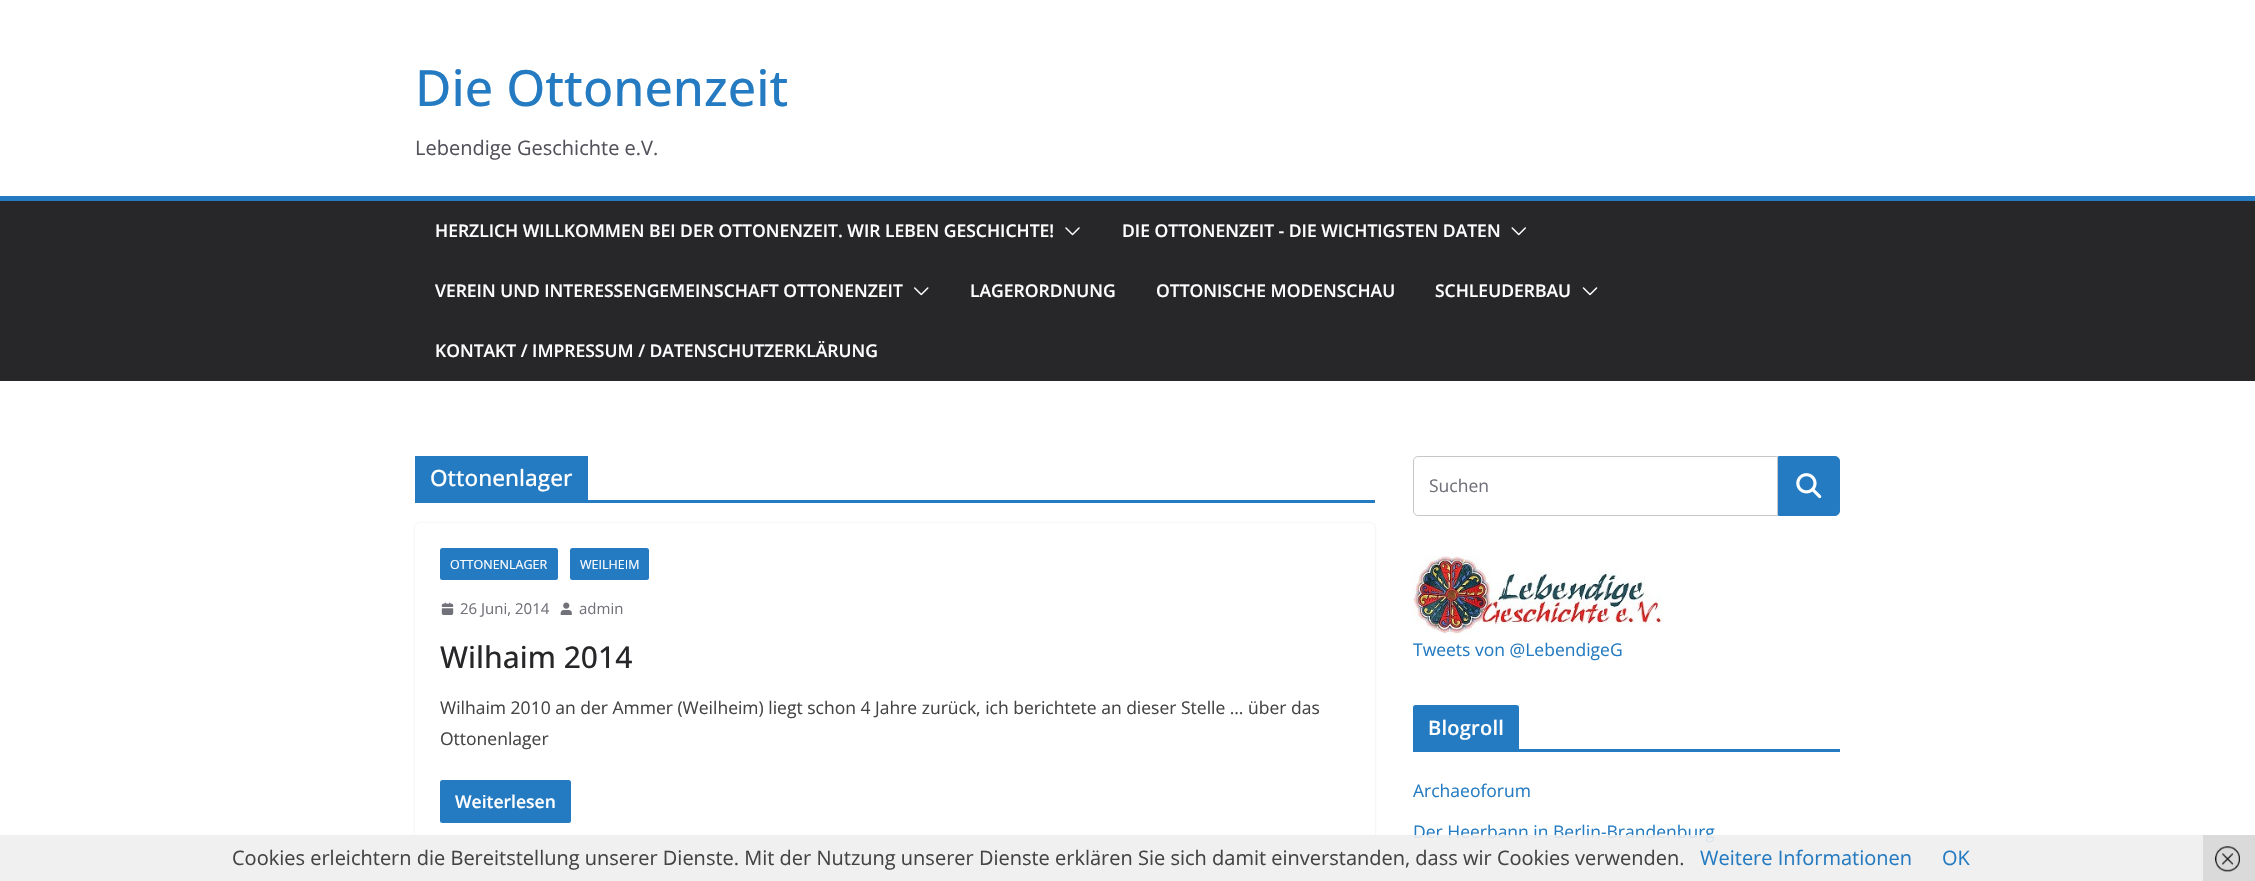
static SkFont makeFont(const char* family, int weight, float size, bool italic = false) {
  SkFontStyle style(weight, SkFontStyle::kNormal_Width,
    italic ? SkFontStyle::kItalic_Slant : SkFontStyle::kUpright_Slant);
  SkFont result(fontMgr->matchFamilyStyle(family, style), size);
  result.setSubpixel(true);
  return result;
}

static void text(SkCanvas* c, const char* s, float x, float y, const SkFont& font, SkColor color) {
  SkPaint ink(SkColor4f::FromColor(color));
  ink.setAntiAlias(true);
  c->drawString(s, x, y, font, ink);
}

static void spacedText(SkCanvas* c, const char* s, float x, float y, const SkFont& font, const SkPaint& ink, float letter, float word) {
  std::vector<SkGlyphID> glyphs(font.countText(s, strlen(s), SkTextEncoding::kUTF8));
  std::vector<float> xs(glyphs.size());
  font.textToGlyphs(s, strlen(s), SkTextEncoding::kUTF8, glyphs);
  font.getXPos(glyphs, xs, x);
  float extra = 0;
  for (size_t i = 0; i < glyphs.size(); i++) {
    xs[i] += extra;
    extra += letter + word * (glyphs[i] == font.unicharToGlyph(' '));
  }
  c->drawTextBlob(SkTextBlob::MakeFromPosHGlyphs(glyphs, xs, y, font), 0, 0, ink);
}

static void box(SkCanvas* c, float l, float t, float r, float b, SkColor color) {
  SkPaint ink(SkColor4f::FromColor(color));
  ink.setAntiAlias(true);
  c->drawRect(SkRect::MakeLTRB(l, t, r, b), ink);
}

static void roundBox(SkCanvas* c, float l, float t, float r, float b, float radius, SkColor color) {
  SkPaint ink(SkColor4f::FromColor(color));
  ink.setAntiAlias(true);
  c->drawRoundRect(SkRect::MakeLTRB(l, t, r, b), radius, radius, ink);
}

static void picture(SkCanvas* c, const char* path, float l, float t, float r, float b) {
  auto image = SkImages::DeferredFromEncodedData(SkData::MakeFromFileName(path));
  c->drawImageRect(image, SkRect::MakeLTRB(l, t, r, b), SkSamplingOptions());
}

void draw(SkCanvas* c) {
  SkPaint paint;
  paint.setAntiAlias(true);
  c->clear(0xffffffff);
  SkFont face1 = makeFont("Open Sans", 500, 50);
  text(c, "Die Ottonenzeit", 415, 106, face1, 0xff257bc1);
  SkFont face2 = makeFont("Open Sans", 400, 20);
  text(c, "Lebendige Geschichte e.V.", 415, 155, face2, 0xff52525b);
  box(c, 0, 201, 2255, 381, 0xff27272a);
  box(c, 0, 196, 2255, 201, 0xff257bc1);
  SkFont face3 = makeFont("Open Sans", 600, 17.5f);
  text(c, "HERZLICH WILLKOMMEN BEI DER OTTONENZEIT. WIR LEBEN GESCHICHTE!", 435, 237, face3, 0xffffffff);
  picture(c, "img_01.png", 1065, 227, 1080, 236);
  text(c, "DIE OTTONENZEIT - DIE WICHTIGSTEN DATEN", 1122, 237, face3, 0xffffffff);
  picture(c, "img_02.png", 1511, 227, 1526, 236);
  text(c, "VEREIN UND INTERESSENGEMEINSCHAFT OTTONENZEIT", 435, 297, face3, 0xffffffff);
  picture(c, "img_03.png", 914, 287, 929, 296);
  text(c, "LAGERORDNUNG", 970, 297, face3, 0xffffffff);
  text(c, "OTTONISCHE MODENSCHAU", 1156, 297, face3, 0xffffffff);
  text(c, "SCHLEUDERBAU", 1435, 297, face3, 0xffffffff);
  picture(c, "img_04.png", 1582, 287, 1598, 296);
  text(c, "KONTAKT / IMPRESSUM / DATENSCHUTZERKLÄRUNG", 435, 357, face3, 0xffffffff);
  box(c, 415, 500, 1375, 503, 0xff257bc1);
  box(c, 415, 456, 588, 500, 0xff257bc1);
  SkFont face4 = makeFont("Open Sans", 500, 22.5f);
  text(c, "Ottonenlager", 430, 486, face4, 0xffffffff);
  c->save();
  c->clipPath(SkPathBuilder(SkPathFillType::kEvenOdd).moveTo(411, 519).lineTo(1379, 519).lineTo(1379, 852).lineTo(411, 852).close().moveTo(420, 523).lineTo(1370, 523).cubicTo(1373, 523, 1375, 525, 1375, 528).lineTo(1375, 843).cubicTo(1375, 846, 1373, 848, 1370, 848).lineTo(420, 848).cubicTo(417, 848, 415, 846, 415, 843).lineTo(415, 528).cubicTo(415, 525, 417, 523, 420, 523).close().detach(), true);
  paint.setColor(0xffe4e4e7);
  paint.setMaskFilter(SkMaskFilter::MakeBlur(kNormal_SkBlurStyle, 1));
  c->drawRoundRect(SkRect::MakeLTRB(415, 523, 1375, 848), 5, 5, paint);
  paint.setMaskFilter(nullptr);
  c->restore();
  roundBox(c, 440, 548, 558, 580, 2.5f, 0xff257bc1);
  SkFont face5 = makeFont("Open Sans", 400, 12.5f);
  text(c, "OTTONENLAGER", 450, 569, face5, 0xffffffff);
  roundBox(c, 570, 548, 649, 580, 2.5f, 0xff257bc1);
  text(c, "WEILHEIM", 580, 569, face5, 0xffffffff);
  picture(c, "img_05.png", 441, 602, 454, 615);
  SkFont face6 = makeFont("Open Sans", 400, 15);
  text(c, "26 Juni, 2014", 460, 614, face6, 0xff71717a);
  picture(c, "img_06.png", 560, 602, 572, 615);
  text(c, "admin", 579, 614, face6, 0xff71717a);
  SkFont face7 = makeFont("Open Sans", 500, 30);
  text(c, "Wilhaim 2014", 440, 668, face7, 0xff27272a);
  SkFont face8 = makeFont("Open Sans", 400, 17.5f);
  text(c, "Wilhaim 2010 an der Ammer (Weilheim) liegt schon 4 Jahre zurück, ich berichtete an dieser Stelle … über das", 440, 714, face8, 0xff444444);
  text(c, "Ottonenlager", 440, 745, face8, 0xff444444);
  roundBox(c, 440, 780, 571, 823, 2.5f, 0xff257bc1);
  text(c, "Weiterlesen", 455, 808, face3, 0xffffffff);
  paint.setStyle(SkPaint::kStroke_Style);
  paint.setStrokeWidth(1);
  paint.setColor(0xffc7c7c7);
  c->drawPath(SkPathBuilder().moveTo(1418, 456.5f).lineTo(1777.5f, 456.5f).lineTo(1777.5f, 515.5f).lineTo(1418, 515.5f).cubicTo(1415.5f, 515.5f, 1413.5f, 513.5f, 1413.5f, 511).lineTo(1413.5f, 461).cubicTo(1413.5f, 458.5f, 1415.5f, 456.5f, 1418, 456.5f).close().detach(), paint);
  text(c, "Suchen", 1429, 492, face8, 0xff71717a);
  paint.setStyle(SkPaint::kFill_Style);
  paint.setColor(0xff257bc1);
  c->drawPath(SkPathBuilder().moveTo(1778.5f, 456.5f).lineTo(1835, 456.5f).cubicTo(1837.5f, 456.5f, 1839.5f, 458.5f, 1839.5f, 461).lineTo(1839.5f, 511).cubicTo(1839.5f, 513.5f, 1837.5f, 515.5f, 1835, 515.5f).lineTo(1778.5f, 515.5f).close().detach(), paint);
  paint.setStyle(SkPaint::kStroke_Style);
  c->drawPath(SkPathBuilder().moveTo(1778.5f, 456.5f).lineTo(1835, 456.5f).cubicTo(1837.5f, 456.5f, 1839.5f, 458.5f, 1839.5f, 461).lineTo(1839.5f, 511).cubicTo(1839.5f, 513.5f, 1837.5f, 515.5f, 1835, 515.5f).lineTo(1778.5f, 515.5f).close().detach(), paint);
  picture(c, "img_07.png", 1796, 473, 1822, 499);
  picture(c, "img_08.png", 1412, 556, 1663, 634);
  text(c, "Tweets von @LebendigeG", 1413, 656, face8, 0xff257bc1);
  box(c, 1413, 749, 1840, 752, 0xff257bc1);
  paint.setStyle(SkPaint::kFill_Style);
  c->drawPath(SkPathBuilder().moveTo(1415.5f, 705).lineTo(1516.5f, 705).cubicTo(1518, 705, 1519, 706, 1519, 707.5f).lineTo(1519, 749).lineTo(1413, 749).lineTo(1413, 707.5f).cubicTo(1413, 706, 1414, 705, 1415.5f, 705).close().detach(), paint);
  SkFont face9 = makeFont("Open Sans", 600, 20);
  paint.setColor(0xffffffff);
  spacedText(c, "Blogroll", 1428, 735, face9, paint, 0.25f, 0);
  text(c, "Archaeoforum", 1413, 797, face8, 0xff257bc1);
  text(c, "Der Heerbann in Berlin-Brandenburg", 1413, 838, face8, 0xff257bc1);
  box(c, 0, 835, 2203, 881, 0xe6eeeeee);
  text(c, "Cookies erleichtern die Bereitstellung unserer Dienste. Mit der Nutzung unserer Dienste erklären Sie sich damit einverstanden, dass wir Cookies verwenden.", 232, 865, face2, 0xff444444);
  text(c, "Weitere Informationen", 1700, 865, face2, 0xff257bc1);
  text(c, "OK", 1942, 865, face2, 0xff257bc1);
  box(c, 2203, 835, 2255, 881, 0xffdadada);
  picture(c, "img_09.png", 2215, 846, 2240, 872);
}
